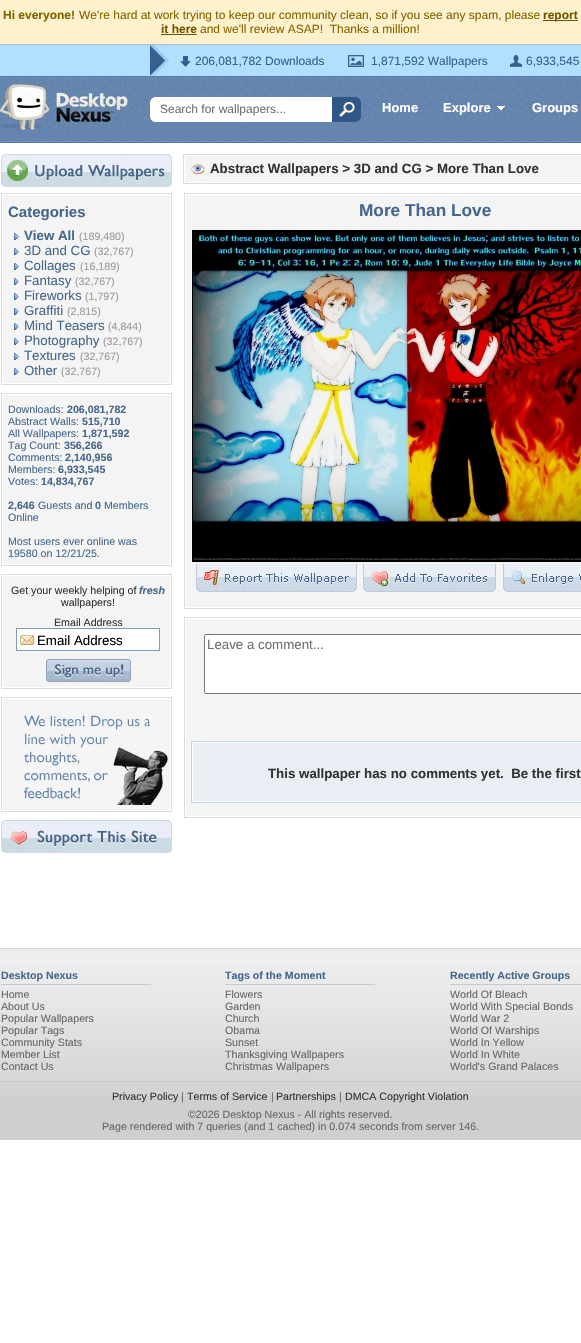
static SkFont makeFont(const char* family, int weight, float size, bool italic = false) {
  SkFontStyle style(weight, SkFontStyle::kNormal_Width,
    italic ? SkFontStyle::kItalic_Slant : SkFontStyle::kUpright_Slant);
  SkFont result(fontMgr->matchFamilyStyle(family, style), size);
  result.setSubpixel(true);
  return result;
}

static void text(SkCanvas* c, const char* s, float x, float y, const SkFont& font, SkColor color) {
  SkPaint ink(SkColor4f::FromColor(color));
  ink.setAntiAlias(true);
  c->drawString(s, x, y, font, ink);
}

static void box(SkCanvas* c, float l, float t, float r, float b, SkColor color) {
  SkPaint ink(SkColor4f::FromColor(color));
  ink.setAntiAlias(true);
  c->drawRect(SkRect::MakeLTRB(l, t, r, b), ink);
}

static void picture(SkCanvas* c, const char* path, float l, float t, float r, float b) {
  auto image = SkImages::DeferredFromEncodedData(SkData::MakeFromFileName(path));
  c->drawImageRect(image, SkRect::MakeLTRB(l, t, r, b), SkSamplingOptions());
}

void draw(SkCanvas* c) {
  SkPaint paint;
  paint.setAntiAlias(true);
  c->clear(0xffffffff);
  box(c, 0, 0, 581, 44, 0xfffff1cb);
  SkFont face1 = makeFont("Liberation Sans", 700, 12);
  text(c, "Hi everyone!", 3, 19, face1, 0xff826200);
  SkFont face2 = makeFont("Liberation Sans", 400, 12);
  text(c, "We're hard at work trying to keep our community clean, so if you see any spam, please", 79, 19, face2, 0xff826200);
  box(c, 543, 20, 578, 21, 0xff705500);
  text(c, "report", 543, 19, face1, 0xff705500);
  text(c, "it here", 161, 33, face1, 0xff705500);
  box(c, 161, 34, 197, 35, 0xff705500);
  text(c, "and we'll review ASAP!  Thanks a million!", 200, 33, face2, 0xff826200);
  box(c, 0, 45, 581, 76, 0xffb1dfff);
  box(c, 0, 44, 581, 45, 0xffb6bac0);
  picture(c, "img_01.png", 150, 45, 169, 76);
  picture(c, "img_02.png", 180, 56, 191, 67);
  text(c, "206,081,782 Downloads", 195, 65, face2, 0xff375e90);
  picture(c, "img_03.png", 348, 55, 364, 67);
  text(c, "1,871,592 Wallpapers", 371, 65, face2, 0xff375e90);
  picture(c, "img_04.png", 510, 55, 522, 67);
  text(c, "6,933,545", 526, 65, face2, 0xff375e90);
  picture(c, "img_05.png", 0, 76, 581, 143);
  picture(c, "img_06.png", 0, 84, 128, 130);
  paint.setColor(0xffffffff);
  c->drawPath(SkPathBuilder().moveTo(156, 97).lineTo(348, 97).lineTo(348, 122).lineTo(156, 122).cubicTo(152.5f, 122, 150, 119.5f, 150, 116).lineTo(150, 103).cubicTo(150, 99.5f, 152.5f, 97, 156, 97).close().detach(), paint);
  text(c, "Search for wallpapers...", 160, 113, face2, 0xff707070);
  paint.setColor(0xff305686);
  c->drawPath(SkPathBuilder().moveTo(332, 97).lineTo(355, 97).cubicTo(358.5f, 97, 361, 99.5f, 361, 103).lineTo(361, 116).cubicTo(361, 119.5f, 358.5f, 122, 355, 122).lineTo(332, 122).close().detach(), paint);
  picture(c, "img_07.png", 339, 102, 355, 117);
  SkFont face3 = makeFont("Liberation Sans", 700, 13);
  text(c, "Home", 382, 112, face3, 0xffffffff);
  text(c, "Explore", 443, 112, face3, 0xffffffff);
  picture(c, "img_08.png", 496, 106, 506, 111);
  text(c, "Groups", 532, 112, face3, 0xffffffff);
  picture(c, "img_09.png", 1, 154, 172, 187);
  paint.setStyle(SkPaint::kStroke_Style);
  paint.setStrokeWidth(1);
  paint.setColor(0xffdcdcdc);
  c->drawRect(SkRect::MakeLTRB(1.5f, 193.5f, 171.5f, 384.5f), paint);
  box(c, 3, 195, 170, 383, 0xfff4f4f4);
  SkFont face4 = makeFont("Liberation Sans", 700, 15);
  text(c, "Categories", 8, 217, face4, 0xff46678a);
  picture(c, "img_10.png", 14, 233, 19, 240);
  SkFont face5 = makeFont("Liberation Sans", 700, 13.3f);
  text(c, "View All", 24, 240, face5, 0xff46678a);
  SkFont face6 = makeFont("Liberation Sans", 400, 10.65f);
  text(c, "(189,480)", 79, 240, face6, 0xff999999);
  picture(c, "img_10.png", 14, 248, 19, 255);
  SkFont face7 = makeFont("Liberation Sans", 400, 13.3f);
  text(c, "3D and CG", 24, 255, face7, 0xff46678a);
  text(c, "(32,767)", 94, 255, face6, 0xff999999);
  picture(c, "img_10.png", 14, 263, 19, 270);
  text(c, "Collages", 24, 270, face7, 0xff46678a);
  text(c, "(16,189)", 80, 270, face6, 0xff999999);
  picture(c, "img_10.png", 14, 278, 19, 285);
  text(c, "Fantasy", 24, 285, face7, 0xff46678a);
  text(c, "(32,767)", 75, 285, face6, 0xff999999);
  picture(c, "img_10.png", 14, 293, 19, 300);
  text(c, "Fireworks", 24, 300, face7, 0xff46678a);
  text(c, "(1,797)", 85, 300, face6, 0xff999999);
  picture(c, "img_10.png", 14, 308, 19, 315);
  text(c, "Graffiti", 24, 315, face7, 0xff46678a);
  text(c, "(2,815)", 67, 315, face6, 0xff999999);
  picture(c, "img_10.png", 14, 323, 19, 330);
  text(c, "Mind Teasers", 24, 330, face7, 0xff46678a);
  text(c, "(4,844)", 108, 330, face6, 0xff999999);
  picture(c, "img_10.png", 14, 338, 19, 345);
  text(c, "Photography", 24, 345, face7, 0xff46678a);
  text(c, "(32,767)", 103, 345, face6, 0xff999999);
  picture(c, "img_10.png", 14, 353, 19, 360);
  text(c, "Textures", 24, 360, face7, 0xff46678a);
  text(c, "(32,767)", 80, 360, face6, 0xff999999);
  picture(c, "img_10.png", 14, 368, 19, 375);
  text(c, "Other", 24, 375, face7, 0xff46678a);
  text(c, "(32,767)", 61, 375, face6, 0xff999999);
  c->drawRect(SkRect::MakeLTRB(1.5f, 393.5f, 171.5f, 565.5f), paint);
  box(c, 3, 395, 170, 564, 0xfff4f4f4);
  text(c, "Downloads:", 8, 413, face6, 0xff46678a);
  SkFont face8 = makeFont("Liberation Sans", 700, 10.65f);
  text(c, "206,081,782", 67, 413, face8, 0xff46678a);
  text(c, "Abstract Walls:", 8, 425, face6, 0xff46678a);
  text(c, "515,710", 82, 425, face8, 0xff46678a);
  text(c, "All Wallpapers:", 8, 437, face6, 0xff46678a);
  text(c, "1,871,592", 82, 437, face8, 0xff46678a);
  text(c, "Tag Count:", 8, 449, face6, 0xff46678a);
  text(c, "356,266", 64, 449, face8, 0xff46678a);
  text(c, "Comments:", 8, 461, face6, 0xff46678a);
  text(c, "2,140,956", 65, 461, face8, 0xff46678a);
  text(c, "Members:", 8, 473, face6, 0xff46678a);
  text(c, "6,933,545", 58, 473, face8, 0xff46678a);
  text(c, "Votes:", 8, 485, face6, 0xff46678a);
  text(c, "14,834,767", 41, 485, face8, 0xff46678a);
  text(c, "2,646", 8, 509, face8, 0xff46678a);
  text(c, "Guests and", 38, 509, face6, 0xff46678a);
  text(c, "0", 95, 509, face8, 0xff46678a);
  text(c, "Members", 104, 509, face6, 0xff46678a);
  text(c, "Online", 8, 521, face6, 0xff46678a);
  text(c, "Most users ever online was", 8, 545, face6, 0xff46678a);
  text(c, "19580 on 12/21/25.", 8, 557, face6, 0xff46678a);
  c->drawRect(SkRect::MakeLTRB(1.5f, 574.5f, 171.5f, 688.5f), paint);
  box(c, 3, 576, 170, 687, 0xfff4f4f4);
  text(c, "Get your weekly helping of", 11, 594, face6, 0xff333333);
  SkFont face9 = makeFont("Liberation Sans", 700, 10.65f, true);
  text(c, "fresh", 139, 594, face9, 0xff46678a);
  text(c, "wallpapers!", 61, 606, face6, 0xff333333);
  text(c, "Email Address", 54, 626, face6, 0xff333333);
  box(c, 17, 629, 159, 650, 0xffffffff);
  picture(c, "img_11.png", 17, 635, 34, 645);
  paint.setColor(0xff7f9db9);
  c->drawRect(SkRect::MakeLTRB(16.5f, 628.5f, 159.5f, 650.5f), paint);
  text(c, "Email Address", 37, 645, face7, 0xff000000);
  picture(c, "img_12.png", 46, 659, 131, 682);
  paint.setColor(0xffdcdcdc);
  c->drawRect(SkRect::MakeLTRB(1.5f, 697.5f, 171.5f, 811.5f), paint);
  box(c, 3, 699, 170, 810, 0xfff4f4f4);
  picture(c, "img_13.png", 21, 714, 168, 805);
  picture(c, "img_14.png", 1, 820, 172, 853);
  c->drawRect(SkRect::MakeLTRB(183.5f, 154.5f, 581.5f, 183.5f), paint);
  box(c, 185, 156, 581, 182, 0xfff4f4f4);
  picture(c, "img_15.png", 190, 161, 206, 177);
  text(c, "Abstract Wallpapers > 3D and CG > More Than Love", 210, 173, face5, 0xff333333);
  c->drawRect(SkRect::MakeLTRB(184.5f, 193.5f, 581.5f, 608.5f), paint);
  box(c, 186, 195, 581, 607, 0xfff4f4f4);
  SkFont face10 = makeFont("Liberation Sans", 700, 17.25f);
  text(c, "More Than Love", 359, 216, face10, 0xff46678a);
  paint.setColor(0xff000000);
  c->drawRect(SkRect::MakeLTRB(192.5f, 230.5f, 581.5f, 561.5f), paint);
  picture(c, "img_16.png", 193, 231, 581, 561);
  picture(c, "img_17.png", 196, 564, 357, 592);
  picture(c, "img_18.png", 363, 564, 496, 592);
  picture(c, "img_19.png", 503, 564, 581, 592);
  paint.setColor(0xffdcdcdc);
  c->drawRect(SkRect::MakeLTRB(184.5f, 617.5f, 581.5f, 817.5f), paint);
  box(c, 186, 619, 581, 816, 0xfff4f4f4);
  paint.setStyle(SkPaint::kFill_Style);
  paint.setColor(0xffffffff);
  c->drawRoundRect(SkRect::MakeLTRB(204.5f, 634.5f, 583.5f, 693.5f), 1.5f, 1.5f, paint);
  paint.setStyle(SkPaint::kStroke_Style);
  paint.setColor(0xff767676);
  c->drawRoundRect(SkRect::MakeLTRB(204.5f, 634.5f, 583.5f, 693.5f), 1.5f, 1.5f, paint);
  text(c, "Leave a comment...", 207, 649, face7, 0xff707070);
  paint.setStyle(SkPaint::kFill_Style);
  paint.setColor(0xffffffff);
  c->drawRect(SkRect::MakeLTRB(191.5f, 741.5f, 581.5f, 802.5f), paint);
  paint.setStyle(SkPaint::kStroke_Style);
  paint.setColor(0xffc5d2e2);
  c->drawRect(SkRect::MakeLTRB(191.5f, 741.5f, 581.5f, 802.5f), paint);
  box(c, 193, 743, 581, 801, 0xffe9eef4);
  text(c, "This wallpaper has no comments yet.  Be the first", 268, 778, face5, 0xff333333);
  box(c, 0, 1096, 581, 1140, 0xffcfcfcf);
  picture(c, "img_20.png", 0, 948, 581, 1096);
  text(c, "Desktop Nexus", 1, 979, face8, 0xff46678a);
  box(c, 1, 984, 151, 985, 0xffc9c9c9);
  text(c, "Home", 1, 998, face6, 0xff666666);
  text(c, "About Us", 1, 1010, face6, 0xff666666);
  text(c, "Popular Wallpapers", 1, 1022, face6, 0xff666666);
  text(c, "Popular Tags", 1, 1034, face6, 0xff666666);
  text(c, "Community Stats", 1, 1046, face6, 0xff666666);
  text(c, "Member List", 1, 1058, face6, 0xff666666);
  text(c, "Contact Us", 1, 1070, face6, 0xff666666);
  text(c, "Tags of the Moment", 225, 979, face8, 0xff46678a);
  box(c, 225, 984, 375, 985, 0xffc9c9c9);
  text(c, "Flowers", 225, 998, face6, 0xff666666);
  text(c, "Garden", 225, 1010, face6, 0xff666666);
  text(c, "Church", 225, 1022, face6, 0xff666666);
  text(c, "Obama", 225, 1034, face6, 0xff666666);
  text(c, "Sunset", 225, 1046, face6, 0xff666666);
  text(c, "Thanksgiving Wallpapers", 225, 1058, face6, 0xff666666);
  text(c, "Christmas Wallpapers", 225, 1070, face6, 0xff666666);
  text(c, "Recently Active Groups", 450, 979, face8, 0xff46678a);
  box(c, 450, 984, 581, 985, 0xffc9c9c9);
  text(c, "World Of Bleach", 450, 998, face6, 0xff666666);
  text(c, "World With Special Bonds", 450, 1010, face6, 0xff666666);
  text(c, "World War 2", 450, 1022, face6, 0xff666666);
  text(c, "World Of Warships", 450, 1034, face6, 0xff666666);
  text(c, "World In Yellow", 450, 1046, face6, 0xff666666);
  text(c, "World In White", 450, 1058, face6, 0xff666666);
  text(c, "World's Grand Palaces", 450, 1070, face6, 0xff666666);
  box(c, 0, 1081, 581, 1082, 0xffc9c9c9);
  text(c, "Privacy Policy", 112, 1100, face6, 0xff333333);
  text(c, "|", 181, 1100, face6, 0xff666666);
  text(c, "Terms of Service", 187, 1100, face6, 0xff333333);
  text(c, "|", 271, 1100, face6, 0xff666666);
  text(c, "Partnerships", 276, 1100, face6, 0xff333333);
  text(c, "|", 339, 1100, face6, 0xff666666);
  text(c, "DMCA Copyright Violation", 345, 1100, face6, 0xff333333);
  text(c, "©2026 Desktop Nexus - All rights reserved.", 188, 1118, face6, 0xff666666);
  text(c, "Page rendered with 7 queries (and 1 cached) in 0.074 seconds from server 146.", 102, 1130, face6, 0xff666666);
}
